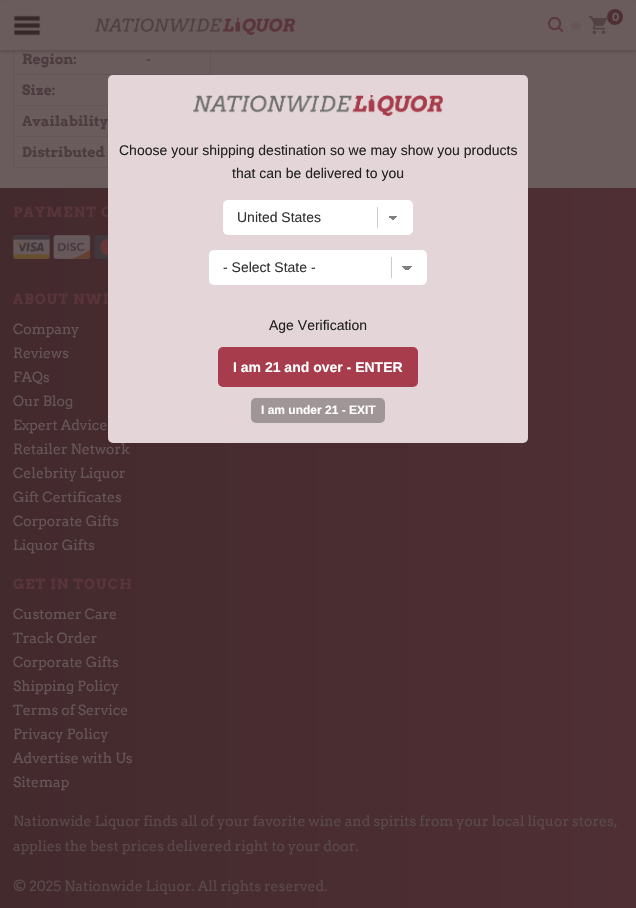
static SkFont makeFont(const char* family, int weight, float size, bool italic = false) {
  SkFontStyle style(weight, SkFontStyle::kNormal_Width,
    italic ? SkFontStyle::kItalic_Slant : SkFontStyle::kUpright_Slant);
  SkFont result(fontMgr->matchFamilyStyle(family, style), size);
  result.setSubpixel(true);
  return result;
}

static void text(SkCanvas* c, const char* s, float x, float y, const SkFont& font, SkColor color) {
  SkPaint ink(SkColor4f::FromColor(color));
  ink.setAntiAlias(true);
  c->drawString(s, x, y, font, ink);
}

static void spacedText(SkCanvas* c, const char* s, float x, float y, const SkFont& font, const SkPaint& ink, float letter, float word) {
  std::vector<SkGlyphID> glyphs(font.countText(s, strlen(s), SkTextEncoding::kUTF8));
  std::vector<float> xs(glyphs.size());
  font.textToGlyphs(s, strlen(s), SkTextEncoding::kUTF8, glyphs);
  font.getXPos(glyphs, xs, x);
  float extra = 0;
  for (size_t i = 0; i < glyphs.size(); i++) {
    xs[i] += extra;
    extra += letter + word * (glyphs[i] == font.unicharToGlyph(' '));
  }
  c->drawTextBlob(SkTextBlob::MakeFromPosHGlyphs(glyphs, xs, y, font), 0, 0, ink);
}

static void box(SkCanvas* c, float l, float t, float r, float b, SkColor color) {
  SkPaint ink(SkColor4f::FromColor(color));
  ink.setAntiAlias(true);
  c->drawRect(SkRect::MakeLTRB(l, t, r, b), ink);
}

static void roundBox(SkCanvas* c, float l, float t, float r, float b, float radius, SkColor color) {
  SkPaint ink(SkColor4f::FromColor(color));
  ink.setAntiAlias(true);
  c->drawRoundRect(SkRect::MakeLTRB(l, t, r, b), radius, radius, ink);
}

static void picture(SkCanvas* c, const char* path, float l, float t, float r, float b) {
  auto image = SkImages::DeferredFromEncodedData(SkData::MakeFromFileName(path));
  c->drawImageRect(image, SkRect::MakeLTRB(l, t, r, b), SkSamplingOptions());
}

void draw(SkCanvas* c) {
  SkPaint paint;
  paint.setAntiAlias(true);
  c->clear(0xff6a5b5d);
  box(c, 13, 50, 211, 168, 0xff645557);
  box(c, 14, 50, 210, 74, 0xff6a5b5d);
  paint.setColor(0x4d37282a);
  paint.setMaskFilter(SkMaskFilter::MakeBlur(kNormal_SkBlurStyle, 1.5f));
  c->drawRect(SkRect::MakeLTRB(0, 2, 636, 52), paint);
  paint.setMaskFilter(nullptr);
  box(c, 0, 1, 636, 50, 0xff6a5b5d);
  picture(c, "img_01.png", 13, 15, 41, 36);
  picture(c, "img_02.png", 95, 18, 295, 35);
  picture(c, "img_03.png", 548, 17, 563, 32);
  roundBox(c, 571, 23, 581, 29, 3, 0xff665558);
  picture(c, "img_04.png", 589, 16, 607, 34);
  paint.setColor(0xff4e2f34);
  c->drawCircle(615, 17, 8, paint);
  SkFont face1 = makeFont("Arvo", 700, 11);
  text(c, "0", 612, 21, face1, 0xff6a5b5d);
  SkFont face2 = makeFont("Arvo", 700, 14);
  text(c, "Region:", 22, 64, face2, 0xff4d3c3f);
  SkFont face3 = makeFont("Arvo", 400, 14);
  text(c, "-", 146, 64, face3, 0xff4d3c3f);
  box(c, 14, 75, 113, 105, 0xff6a5b5d);
  text(c, "Size:", 22, 95, face2, 0xff4d3c3f);
  box(c, 14, 106, 108, 136, 0xff6a5b5d);
  text(c, "Availability", 22, 126, face2, 0xff4d3c3f);
  box(c, 14, 137, 108, 167, 0xff6a5b5d);
  text(c, "Distributed", 22, 157, face2, 0xff4d3c3f);
  {
    const SkColor colors[] = {0xff4f2f34, 0xff432a2d};
    const float stops[] = {0, 1};
    const SkPoint ends[] = {{636, 573}, {0, 573}};
    paint.setShader(SkGradientShader::MakeLinear(ends, colors, stops, 2, SkTileMode::kClamp));
    paint.setAlpha(255);
  }
  c->drawRect(SkRect::MakeLTRB(0, 188, 636, 908), paint);
  paint.setShader(nullptr);
  paint.setColor(0xff59343a);
  spacedText(c, "PAYMENT O", 13, 217, face2, paint, 1, 0);
  picture(c, "img_05.png", 13, 235, 108, 259);
  spacedText(c, "ABOUT NWL", 13, 304, face2, paint, 1, 0);
  text(c, "Company", 13, 334, face3, 0xff665558);
  text(c, "Reviews", 13, 358, face3, 0xff665558);
  text(c, "FAQs", 13, 382, face3, 0xff665558);
  text(c, "Our Blog", 13, 406, face3, 0xff665558);
  text(c, "Expert Advice", 13, 430, face3, 0xff665558);
  text(c, "Retailer Network", 13, 454, face3, 0xff665558);
  text(c, "Celebrity Liquor", 13, 478, face3, 0xff665558);
  text(c, "Gift Certificates", 13, 502, face3, 0xff665558);
  text(c, "Corporate Gifts", 13, 526, face3, 0xff665558);
  text(c, "Liquor Gifts", 13, 550, face3, 0xff665558);
  spacedText(c, "GET IN TOUCH", 13, 589, face2, paint, 1, 0);
  text(c, "Customer Care", 13, 619, face3, 0xff665558);
  text(c, "Track Order", 13, 643, face3, 0xff665558);
  text(c, "Corporate Gifts", 13, 667, face3, 0xff665558);
  text(c, "Shipping Policy", 13, 691, face3, 0xff665558);
  text(c, "Terms of Service", 13, 715, face3, 0xff665558);
  text(c, "Privacy Policy", 13, 739, face3, 0xff665558);
  text(c, "Advertise with Us", 13, 763, face3, 0xff665558);
  text(c, "Sitemap", 13, 787, face3, 0xff665558);
  text(c, "Nationwide Liquor finds all of your favorite wine and spirits from your local liquor stores,", 13, 826, face3, 0xff5a494b);
  text(c, "applies the best prices delivered right to your door.", 13, 851, face3, 0xff5a494b);
  text(c, "© 2025 Nationwide Liquor. All rights reserved.", 13, 891, face3, 0xff5a494b);
  roundBox(c, 108, 75, 528, 443, 5, 0xffe4d6d8);
  picture(c, "img_06.png", 193, 95, 443, 116);
  SkFont face4 = makeFont("Liberation Sans", 400, 14);
  text(c, "Choose your shipping destination so we may show you products", 119, 155, face4, 0xff222222);
  text(c, "that can be delivered to you", 232, 178, face4, 0xff222222);
  roundBox(c, 223, 200, 413, 235, 5, 0xffffffff);
  box(c, 377, 207, 378, 228, 0xffcccccc);
  {
    const SkColor colors[] = {0xff808080, 0xffffffff};
    const float stops[] = {0.5f, 0.5f};
    const SkPoint ends[] = {{393, 216}, {398, 221}};
    paint.setShader(SkGradientShader::MakeLinear(ends, colors, stops, 2, SkTileMode::kClamp));
    paint.setAlpha(255);
  }
  c->drawRect(SkRect::MakeLTRB(393, 216, 398, 220), paint);
  {
    const SkColor colors[] = {0xffffffff, 0xff808080};
    const float stops[] = {0.5f, 0.5f};
    const SkPoint ends[] = {{388, 221}, {393, 216}};
    paint.setShader(SkGradientShader::MakeLinear(ends, colors, stops, 2, SkTileMode::kClamp));
    paint.setAlpha(255);
  }
  c->drawRect(SkRect::MakeLTRB(388, 216, 393, 220), paint);
  text(c, "United States", 237, 222, face4, 0xff333333);
  roundBox(c, 209, 250, 427, 285, 5, 0xffffffff);
  box(c, 391, 257, 392, 278, 0xffcccccc);
  {
    const SkColor colors[] = {0xff808080, 0xffffffff};
    const float stops[] = {0.5f, 0.5f};
    const SkPoint ends[] = {{407, 266}, {412, 271}};
    paint.setShader(SkGradientShader::MakeLinear(ends, colors, stops, 2, SkTileMode::kClamp));
    paint.setAlpha(255);
  }
  c->drawRect(SkRect::MakeLTRB(407, 266, 412, 270), paint);
  {
    const SkColor colors[] = {0xffffffff, 0xff808080};
    const float stops[] = {0.5f, 0.5f};
    const SkPoint ends[] = {{402, 271}, {407, 266}};
    paint.setShader(SkGradientShader::MakeLinear(ends, colors, stops, 2, SkTileMode::kClamp));
    paint.setAlpha(255);
  }
  c->drawRect(SkRect::MakeLTRB(402, 266, 407, 270), paint);
  text(c, "- Select State -", 223, 272, face4, 0xff333333);
  text(c, "Age Verification", 269, 330, face4, 0xff222222);
  roundBox(c, 218, 347, 418, 387, 5, 0xffa73c4c);
  SkFont face5 = makeFont("Liberation Sans", 700, 14);
  text(c, "I am 21 and over - ENTER", 233, 372, face5, 0xffffffff);
  roundBox(c, 251, 398, 385, 423, 5, 0xffa19697);
  SkFont face6 = makeFont("Liberation Sans", 700, 12);
  text(c, "I am under 21 - EXIT", 261, 414, face6, 0xffffffff);
}
